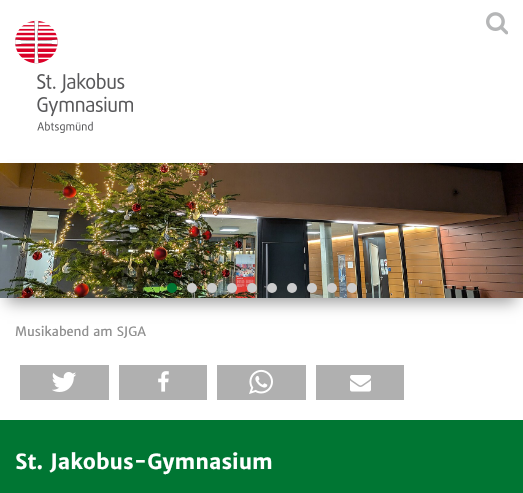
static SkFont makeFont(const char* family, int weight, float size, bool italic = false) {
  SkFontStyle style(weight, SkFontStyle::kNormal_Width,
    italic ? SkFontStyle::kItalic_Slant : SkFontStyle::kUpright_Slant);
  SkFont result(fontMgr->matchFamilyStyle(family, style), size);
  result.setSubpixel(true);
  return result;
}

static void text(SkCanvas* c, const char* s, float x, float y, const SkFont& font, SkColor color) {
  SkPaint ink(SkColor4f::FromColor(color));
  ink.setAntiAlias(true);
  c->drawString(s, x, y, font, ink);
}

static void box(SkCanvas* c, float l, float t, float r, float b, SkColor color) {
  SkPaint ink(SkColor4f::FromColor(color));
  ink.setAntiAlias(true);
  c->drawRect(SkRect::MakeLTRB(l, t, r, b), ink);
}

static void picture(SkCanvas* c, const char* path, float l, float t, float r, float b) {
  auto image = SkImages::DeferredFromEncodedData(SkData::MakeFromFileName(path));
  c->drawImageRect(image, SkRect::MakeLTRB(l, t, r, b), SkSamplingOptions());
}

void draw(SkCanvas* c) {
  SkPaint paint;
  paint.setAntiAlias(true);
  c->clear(0xffffffff);
  picture(c, "img_01.png", 15, 20, 133, 133);
  picture(c, "img_02.png", 486, 12, 508, 35);
  paint.setColor(0x66000000);
  paint.setMaskFilter(SkMaskFilter::MakeBlur(kNormal_SkBlurStyle, 7.5f));
  c->drawRect(SkRect::MakeLTRB(7, 181, 516, 302), paint);
  paint.setMaskFilter(nullptr);
  picture(c, "img_03.png", 0, 163, 523, 298);
  paint.setColor(0xff007633);
  c->drawCircle(172, 288, 5, paint);
  paint.setColor(0xffcccccc);
  c->drawCircle(192, 288, 5, paint);
  c->drawCircle(212, 288, 5, paint);
  c->drawCircle(232, 288, 5, paint);
  c->drawCircle(252, 288, 5, paint);
  c->drawCircle(272, 288, 5, paint);
  c->drawCircle(292, 288, 5, paint);
  c->drawCircle(312, 288, 5, paint);
  c->drawCircle(332, 288, 5, paint);
  c->drawCircle(352, 288, 5, paint);
  SkFont face1 = makeFont("Merriweather Sans", 400, 12.75f);
  text(c, "Musikabend am SJGA", 15, 336, face1, 0xff8f8f8f);
  box(c, 20, 365, 109, 400, 0xffb0b0b0);
  picture(c, "img_04.png", 52, 372, 76, 392);
  box(c, 119, 365, 207, 400, 0xffb0b0b0);
  picture(c, "img_05.png", 158, 371, 169, 392);
  box(c, 217, 365, 306, 400, 0xffb0b0b0);
  picture(c, "img_06.png", 249, 369, 273, 394);
  box(c, 316, 365, 404, 400, 0xffb0b0b0);
  picture(c, "img_07.png", 350, 375, 371, 392);
  box(c, 0, 420, 523, 493, 0xff007633);
  SkFont face2 = makeFont("Merriweather Sans", 700, 20.75f);
  text(c, "St. Jakobus-Gymnasium", 15, 469, face2, 0xffffffff);
}
